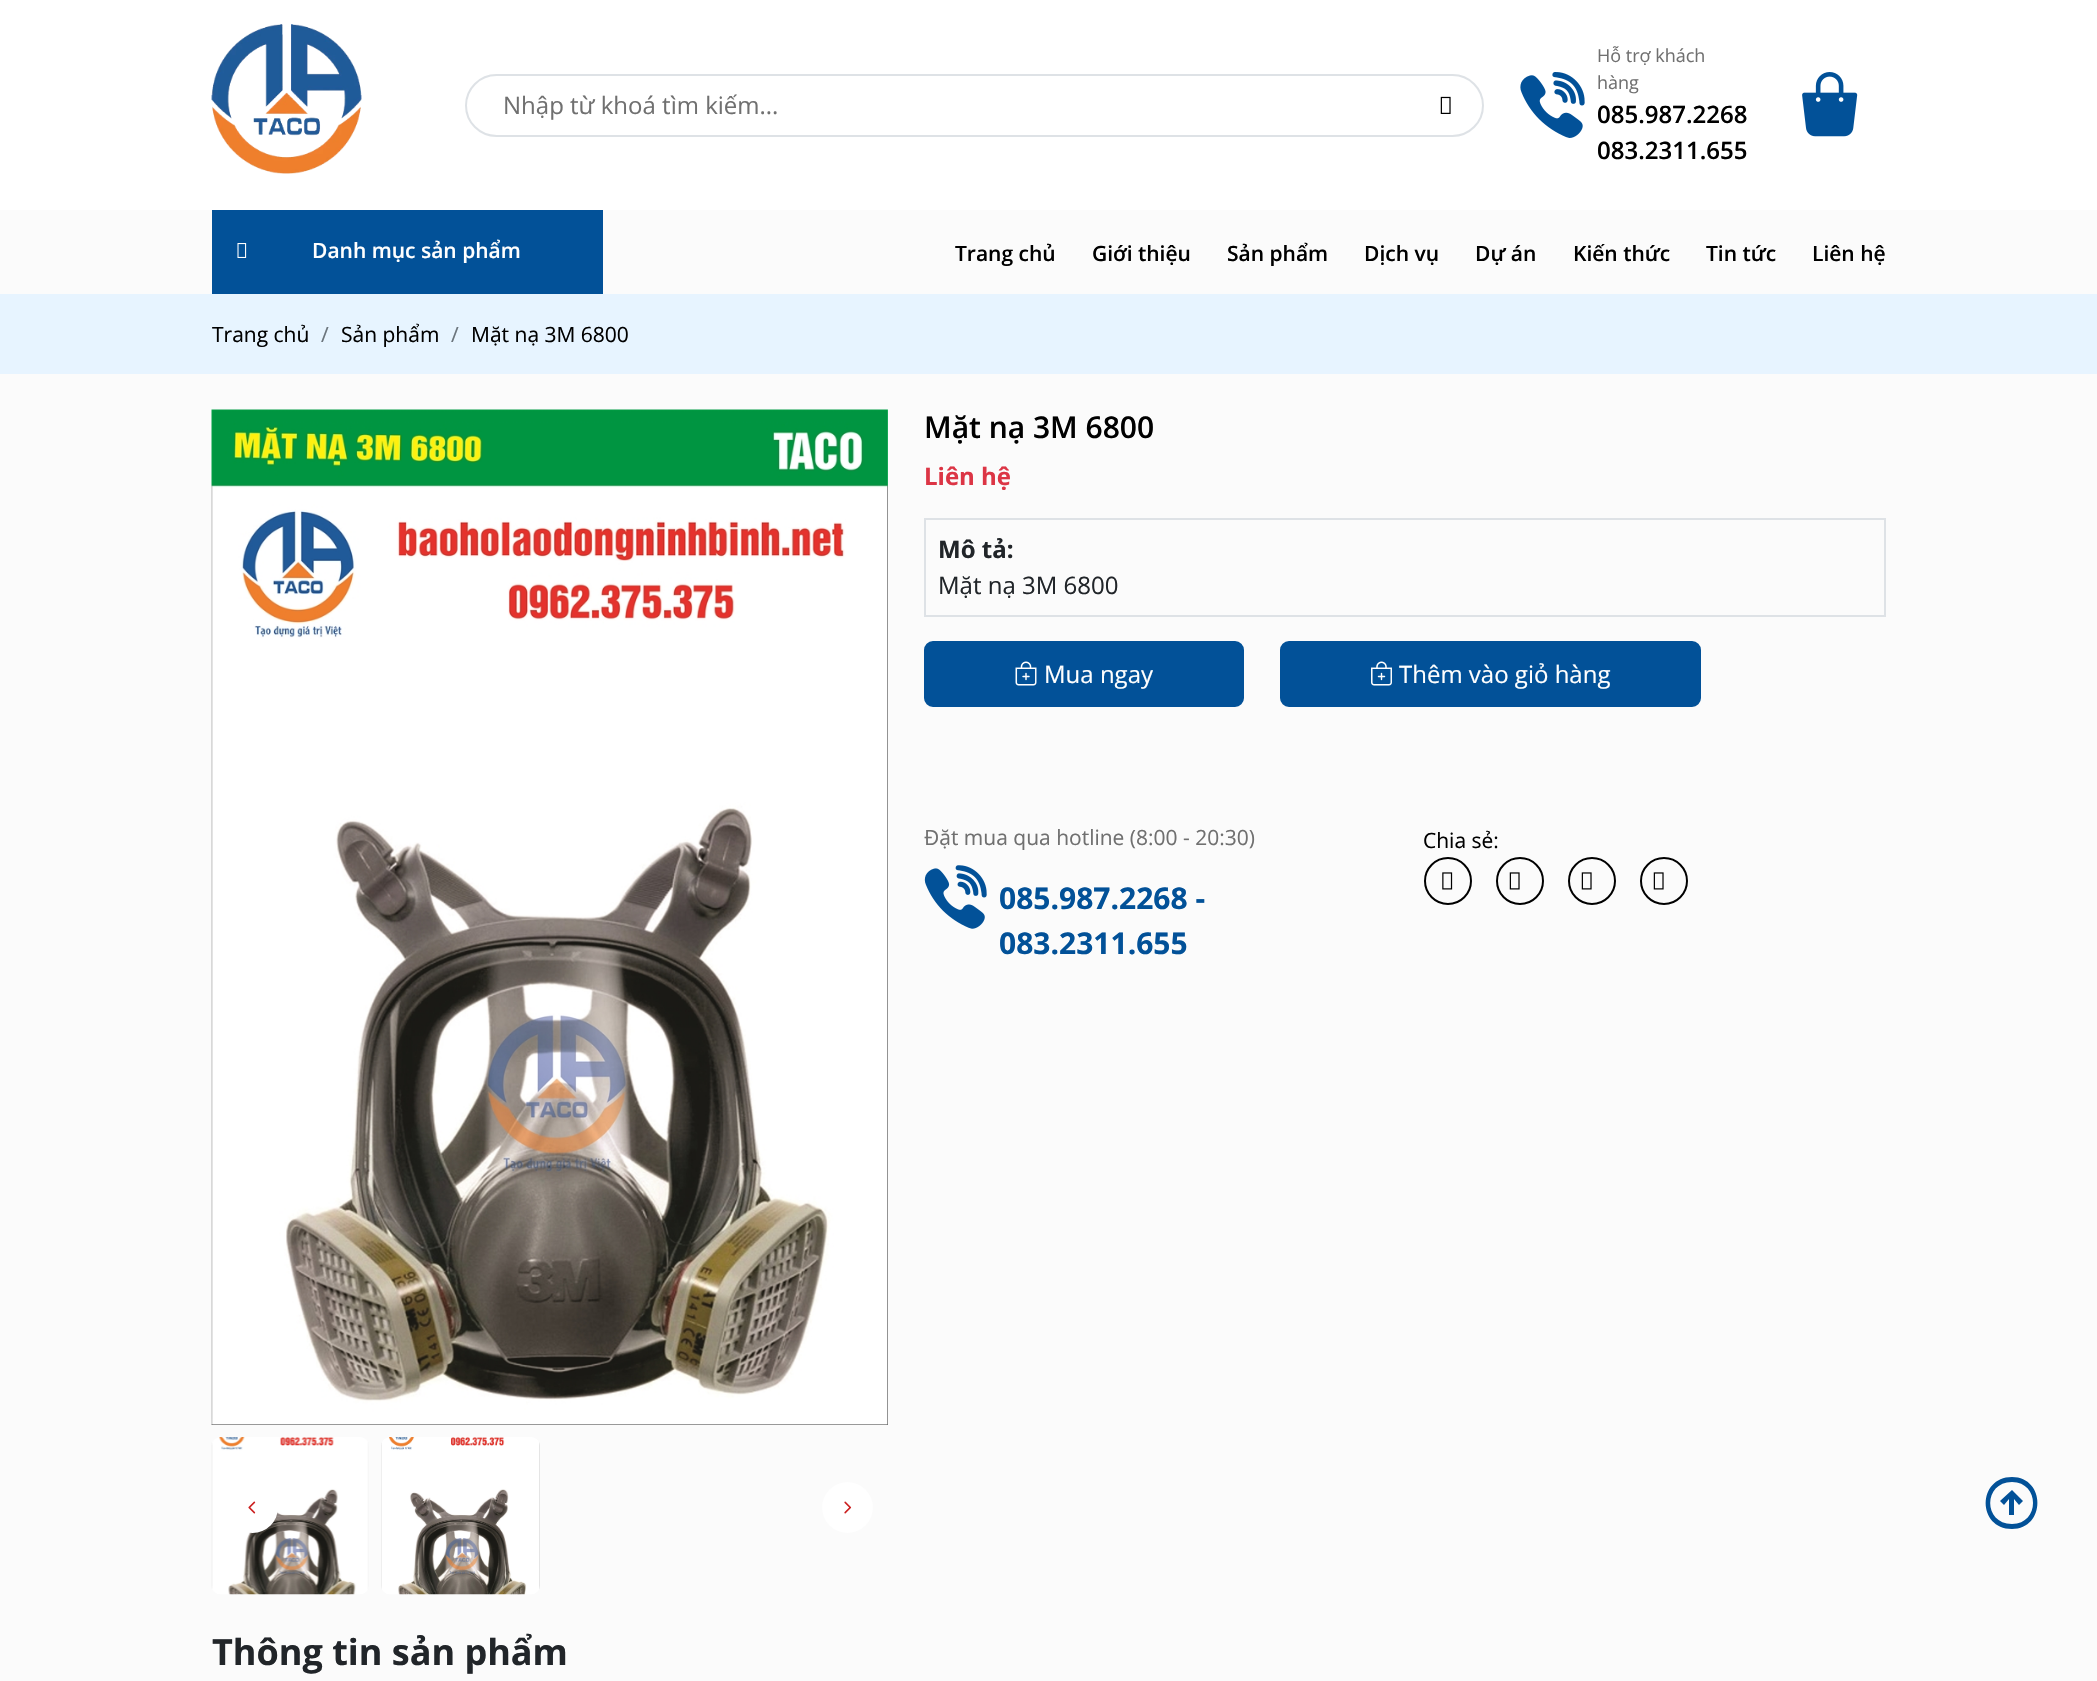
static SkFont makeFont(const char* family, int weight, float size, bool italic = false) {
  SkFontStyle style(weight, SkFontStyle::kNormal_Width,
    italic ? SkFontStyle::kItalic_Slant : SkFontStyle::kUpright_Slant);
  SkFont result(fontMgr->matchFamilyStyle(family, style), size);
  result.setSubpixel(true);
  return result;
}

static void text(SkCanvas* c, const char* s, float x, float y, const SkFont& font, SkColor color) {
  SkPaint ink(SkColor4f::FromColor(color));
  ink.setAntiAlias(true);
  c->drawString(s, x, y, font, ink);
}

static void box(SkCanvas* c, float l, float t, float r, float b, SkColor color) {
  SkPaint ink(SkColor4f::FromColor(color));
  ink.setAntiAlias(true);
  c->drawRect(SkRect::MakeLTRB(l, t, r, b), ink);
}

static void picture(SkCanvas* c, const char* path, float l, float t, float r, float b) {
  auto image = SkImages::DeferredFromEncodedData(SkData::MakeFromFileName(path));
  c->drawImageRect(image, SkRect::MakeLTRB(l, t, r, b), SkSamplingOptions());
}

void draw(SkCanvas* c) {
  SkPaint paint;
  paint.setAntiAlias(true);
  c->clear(0xffffffff);
  picture(c, "img_01.png", 211, 24, 362, 174);
  paint.setStyle(SkPaint::kStroke_Style);
  paint.setStrokeWidth(2);
  paint.setColor(0xffdee2e6);
  c->drawRoundRect(SkRect::MakeLTRB(466, 75, 1483, 136), 30.5f, 30.5f, paint);
  SkFont face1 = makeFont("Open Sans", 400, 24);
  text(c, "Nhập từ khoá tìm kiếm...", 503, 114, face1, 0xff707070);
  picture(c, "img_02.png", 1440, 96, 1451, 114);
  picture(c, "img_03.png", 1520, 72, 1585, 138);
  SkFont face2 = makeFont("Open Sans", 400, 18);
  text(c, "Hỗ trợ khách", 1597, 62, face2, 0xff707070);
  text(c, "hàng", 1597, 89, face2, 0xff707070);
  SkFont face3 = makeFont("Open Sans", 600, 24);
  text(c, "085.987.2268", 1597, 123, face3, 0xff000000);
  text(c, "083.2311.655", 1597, 159, face3, 0xff000000);
  picture(c, "img_04.png", 1802, 72, 1858, 137);
  box(c, 0, 210, 2097, 294, 0xfffbfbfb);
  box(c, 212, 210, 603, 294, 0xff025198);
  picture(c, "img_05.png", 237, 243, 247, 258);
  SkFont face4 = makeFont("Open Sans", 600, 21);
  text(c, "Danh mục sản phẩm", 312, 258, face4, 0xffffffff);
  text(c, "Trang chủ", 955, 261, face4, 0xff000000);
  text(c, "Giới thiệu", 1092, 261, face4, 0xff000000);
  text(c, "Sản phẩm", 1227, 261, face4, 0xff000000);
  text(c, "Dịch vụ", 1364, 261, face4, 0xff000000);
  text(c, "Dự án", 1475, 261, face4, 0xff000000);
  text(c, "Kiến thức", 1573, 261, face4, 0xff000000);
  text(c, "Tin tức", 1706, 261, face4, 0xff000000);
  text(c, "Liên hệ", 1812, 261, face4, 0xff000000);
  box(c, 0, 294, 2097, 374, 0xffe7f4ff);
  SkFont face5 = makeFont("Open Sans", 400, 21);
  text(c, "Trang chủ", 212, 342, face5, 0xff000000);
  text(c, "/", 321, 342, face5, 0xff6c757d);
  text(c, "Sản phẩm", 341, 342, face5, 0xff000000);
  text(c, "/", 451, 342, face5, 0xff6c757d);
  text(c, "Mặt nạ 3M 6800", 471, 342, face5, 0xff000000);
  box(c, 0, 374, 2097, 1681, 0xfffbfbfb);
  picture(c, "img_06.png", 211, 409, 888, 1425);
  picture(c, "img_07.png", 211, 1437, 369, 1595);
  picture(c, "img_08.png", 381, 1437, 540, 1595);
  paint.setStyle(SkPaint::kFill_Style);
  paint.setColor(0xffffffff);
  c->drawCircle(252.5f, 1507.5f, 25.5f, paint);
  picture(c, "img_09.png", 248, 1501, 256, 1514);
  c->drawCircle(847.5f, 1507.5f, 25.5f, paint);
  picture(c, "img_10.png", 844, 1501, 852, 1514);
  SkFont face6 = makeFont("Open Sans", 600, 30);
  text(c, "Mặt nạ 3M 6800", 924, 438, face6, 0xff000000);
  SkFont face7 = makeFont("Open Sans", 700, 24);
  text(c, "Liên hệ", 924, 485, face7, 0xffdc3545);
  paint.setStyle(SkPaint::kStroke_Style);
  paint.setColor(0xffdee2e6);
  c->drawRect(SkRect::MakeLTRB(925, 519, 1885, 616), paint);
  text(c, "Mô tả:", 938, 558, face7, 0xff212529);
  text(c, "Mặt nạ 3M 6800", 938, 594, face1, 0xff212529);
  paint.setStyle(SkPaint::kFill_Style);
  paint.setColor(0xff025198);
  c->drawRoundRect(SkRect::MakeLTRB(925, 642, 1243, 706), 8, 8, paint);
  paint.setStyle(SkPaint::kStroke_Style);
  c->drawRoundRect(SkRect::MakeLTRB(925, 642, 1243, 706), 8, 8, paint);
  picture(c, "img_11.png", 1015, 661, 1037, 686);
  text(c, "Mua ngay", 1044, 683, face1, 0xffffffff);
  paint.setStyle(SkPaint::kFill_Style);
  c->drawRoundRect(SkRect::MakeLTRB(1281, 642, 1700, 706), 8, 8, paint);
  paint.setStyle(SkPaint::kStroke_Style);
  c->drawRoundRect(SkRect::MakeLTRB(1281, 642, 1700, 706), 8, 8, paint);
  picture(c, "img_12.png", 1371, 661, 1392, 686);
  text(c, "Thêm vào giỏ hàng", 1399, 683, face1, 0xffffffff);
  text(c, "Đặt mua qua hotline (8:00 - 20:30)", 924, 845, face5, 0xff707070);
  picture(c, "img_13.png", 924, 865, 987, 929);
  SkFont face8 = makeFont("Open Sans", 700, 30);
  text(c, "085.987.2268 -", 999, 909, face8, 0xff025198);
  text(c, "083.2311.655", 999, 954, face8, 0xff025198);
  text(c, "Chia sẻ:", 1423, 848, face5, 0xff000000);
  paint.setColor(0xff000000);
  c->drawCircle(1448, 881, 23, paint);
  picture(c, "img_14.png", 1442, 872, 1453, 890);
  c->drawCircle(1520, 881, 23, paint);
  picture(c, "img_15.png", 1509, 872, 1520, 890);
  c->drawCircle(1592, 881, 23, paint);
  picture(c, "img_15.png", 1581, 872, 1592, 890);
  c->drawCircle(1664, 881, 23, paint);
  picture(c, "img_15.png", 1653, 872, 1664, 890);
  SkFont face9 = makeFont("Open Sans", 700, 36);
  text(c, "Thông tin sản phẩm", 212, 1665, face9, 0xff212529);
  paint.setStyle(SkPaint::kFill_Style);
  paint.setColor(0xff025198);
  c->drawPath(SkPathBuilder(SkPathFillType::kEvenOdd).moveTo(2012, 1529).cubicTo(1977, 1529, 1977, 1477, 2012, 1477).cubicTo(2046, 1477, 2046, 1529, 2012, 1529).close().moveTo(2012, 1524).cubicTo(2040, 1524, 2040, 1482, 2012, 1482).cubicTo(1983, 1482, 1983, 1524, 2012, 1524).close().moveTo(2014, 1499).lineTo(2014, 1515).lineTo(2009, 1515).lineTo(2009, 1499).lineTo(2004, 1505).lineTo(2000, 1501).lineTo(2012, 1490).lineTo(2023, 1501).lineTo(2019, 1505).close().detach(), paint);
}
